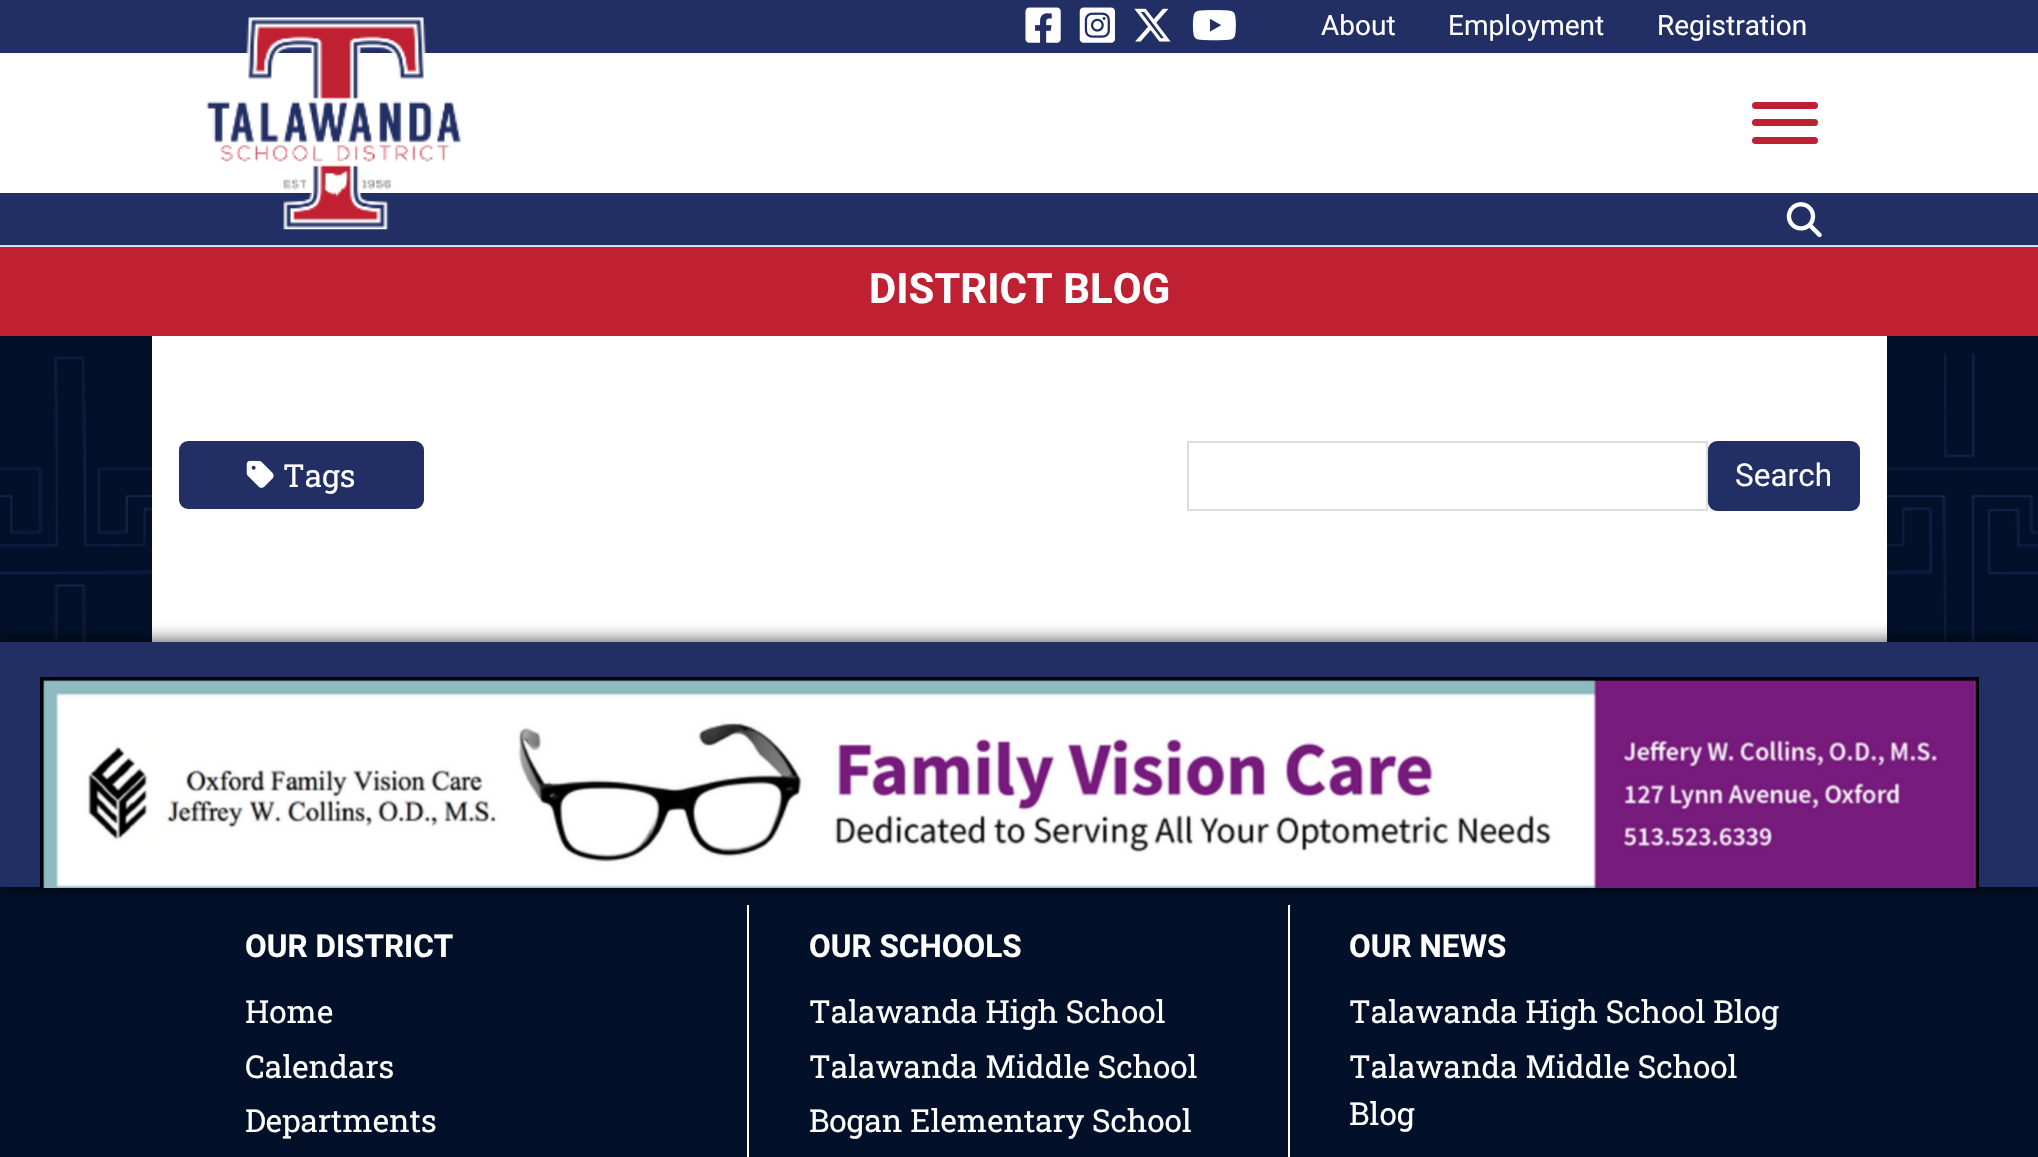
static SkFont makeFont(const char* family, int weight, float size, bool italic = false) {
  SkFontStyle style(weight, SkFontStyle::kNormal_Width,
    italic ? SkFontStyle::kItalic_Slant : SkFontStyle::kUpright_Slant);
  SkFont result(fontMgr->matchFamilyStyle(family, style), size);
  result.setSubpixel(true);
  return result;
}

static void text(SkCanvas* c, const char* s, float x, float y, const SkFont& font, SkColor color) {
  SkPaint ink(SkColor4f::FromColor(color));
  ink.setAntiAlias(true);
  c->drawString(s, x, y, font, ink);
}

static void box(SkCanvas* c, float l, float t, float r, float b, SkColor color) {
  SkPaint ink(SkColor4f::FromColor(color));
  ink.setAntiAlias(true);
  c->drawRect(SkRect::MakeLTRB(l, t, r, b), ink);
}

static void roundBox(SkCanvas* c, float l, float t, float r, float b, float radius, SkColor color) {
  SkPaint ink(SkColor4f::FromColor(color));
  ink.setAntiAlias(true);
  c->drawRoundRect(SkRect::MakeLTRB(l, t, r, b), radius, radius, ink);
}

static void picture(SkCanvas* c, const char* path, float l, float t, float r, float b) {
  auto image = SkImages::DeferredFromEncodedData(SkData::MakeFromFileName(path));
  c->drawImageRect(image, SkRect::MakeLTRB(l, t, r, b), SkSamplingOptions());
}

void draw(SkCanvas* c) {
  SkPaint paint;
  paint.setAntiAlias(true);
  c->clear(0xffffffff);
  box(c, 0, 245, 2038, 247, 0xffdddddd);
  box(c, 0, 0, 2038, 53, 0xff212f64);
  picture(c, "img_01.png", 1025, 7, 1061, 43);
  picture(c, "img_02.png", 1079, 7, 1115, 43);
  picture(c, "img_03.png", 1134, 8, 1171, 42);
  picture(c, "img_04.png", 1192, 10, 1236, 41);
  SkFont face1 = makeFont("Roboto", 400, 28);
  text(c, "About", 1321, 35, face1, 0xffffffff);
  text(c, "Employment", 1448, 35, face1, 0xffffffff);
  text(c, "Registration", 1657, 35, face1, 0xffffffff);
  box(c, 0, 193, 2038, 245, 0xff212f64);
  picture(c, "img_05.png", 206, 17, 461, 230);
  roundBox(c, 1752, 102, 1818, 109, 3.5f, 0xffbf2032);
  roundBox(c, 1752, 119, 1818, 126, 3.5f, 0xffbf2032);
  roundBox(c, 1752, 137, 1818, 144, 3.5f, 0xffbf2032);
  picture(c, "img_06.png", 1786, 202, 1822, 238);
  box(c, 0, 247, 2038, 336, 0xffbf2032);
  SkFont face2 = makeFont("Roboto", 700, 42);
  text(c, "DISTRICT BLOG", 869, 303, face2, 0xffffffff);
  picture(c, "img_07.png", 0, 336, 2038, 642);
  box(c, 152, 336, 1887, 642, 0xffffffff);
  paint.setColor(0xff212f64);
  c->drawRoundRect(SkRect::MakeLTRB(180, 442, 423, 508), 8, 8, paint);
  paint.setStyle(SkPaint::kStroke_Style);
  paint.setStrokeWidth(2);
  c->drawRoundRect(SkRect::MakeLTRB(180, 442, 423, 508), 8, 8, paint);
  picture(c, "img_08.png", 246, 460, 274, 488);
  SkFont face3 = makeFont("Roboto Slab", 400, 31.5f);
  text(c, "Tags", 283, 487, face3, 0xffffffff);
  paint.setColor(0xffdddddd);
  c->drawRect(SkRect::MakeLTRB(1188, 442, 1707, 510), paint);
  paint.setStyle(SkPaint::kFill_Style);
  paint.setColor(0xff212f64);
  c->drawRoundRect(SkRect::MakeLTRB(1709, 442, 1859, 510), 8, 8, paint);
  paint.setStyle(SkPaint::kStroke_Style);
  c->drawRoundRect(SkRect::MakeLTRB(1709, 442, 1859, 510), 8, 8, paint);
  SkFont face4 = makeFont("Roboto", 400, 31.5f);
  text(c, "Search", 1735, 486, face4, 0xffffffff);
  box(c, 0, 887, 2038, 1157, 0xff021029);
  box(c, 1288, 905, 1290, 1157, 0xffffffff);
  box(c, 747, 905, 749, 1157, 0xffffffff);
  paint.setStyle(SkPaint::kFill_Style);
  paint.setColor(0xbf000000);
  paint.setMaskFilter(SkMaskFilter::MakeBlur(kNormal_SkBlurStyle, 9));
  c->drawRect(SkRect::MakeLTRB(0, 642, 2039, 887), paint);
  paint.setMaskFilter(nullptr);
  box(c, 0, 642, 2038, 887, 0xff212f64);
  c->save();
  c->clipRect(SkRect::MakeLTRB(0, 642, 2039, 887));
  paint.setStyle(SkPaint::kStroke_Style);
  paint.setStrokeWidth(4);
  paint.setColor(0xff000000);
  c->drawRect(SkRect::MakeLTRB(42, 679, 1977, 901), paint);
  c->restore();
  picture(c, "img_09.png", 43, 680, 1977, 888);
  SkFont face5 = makeFont("Roboto", 700, 31.5f);
  text(c, "OUR DISTRICT", 245, 957, face5, 0xffffffff);
  text(c, "Home", 245, 1023, face3, 0xffffffff);
  text(c, "Calendars", 245, 1078, face3, 0xffffffff);
  text(c, "Departments", 245, 1132, face3, 0xffffffff);
  text(c, "OUR SCHOOLS", 809, 957, face5, 0xffffffff);
  text(c, "Talawanda High School", 809, 1023, face3, 0xffffffff);
  text(c, "Talawanda Middle School", 809, 1078, face3, 0xffffffff);
  text(c, "Bogan Elementary School", 809, 1132, face3, 0xffffffff);
  text(c, "OUR NEWS", 1349, 957, face5, 0xffffffff);
  text(c, "Talawanda High School Blog", 1349, 1023, face3, 0xffffffff);
  text(c, "Talawanda Middle School", 1349, 1078, face3, 0xffffffff);
  text(c, "Blog", 1349, 1125, face3, 0xffffffff);
}
